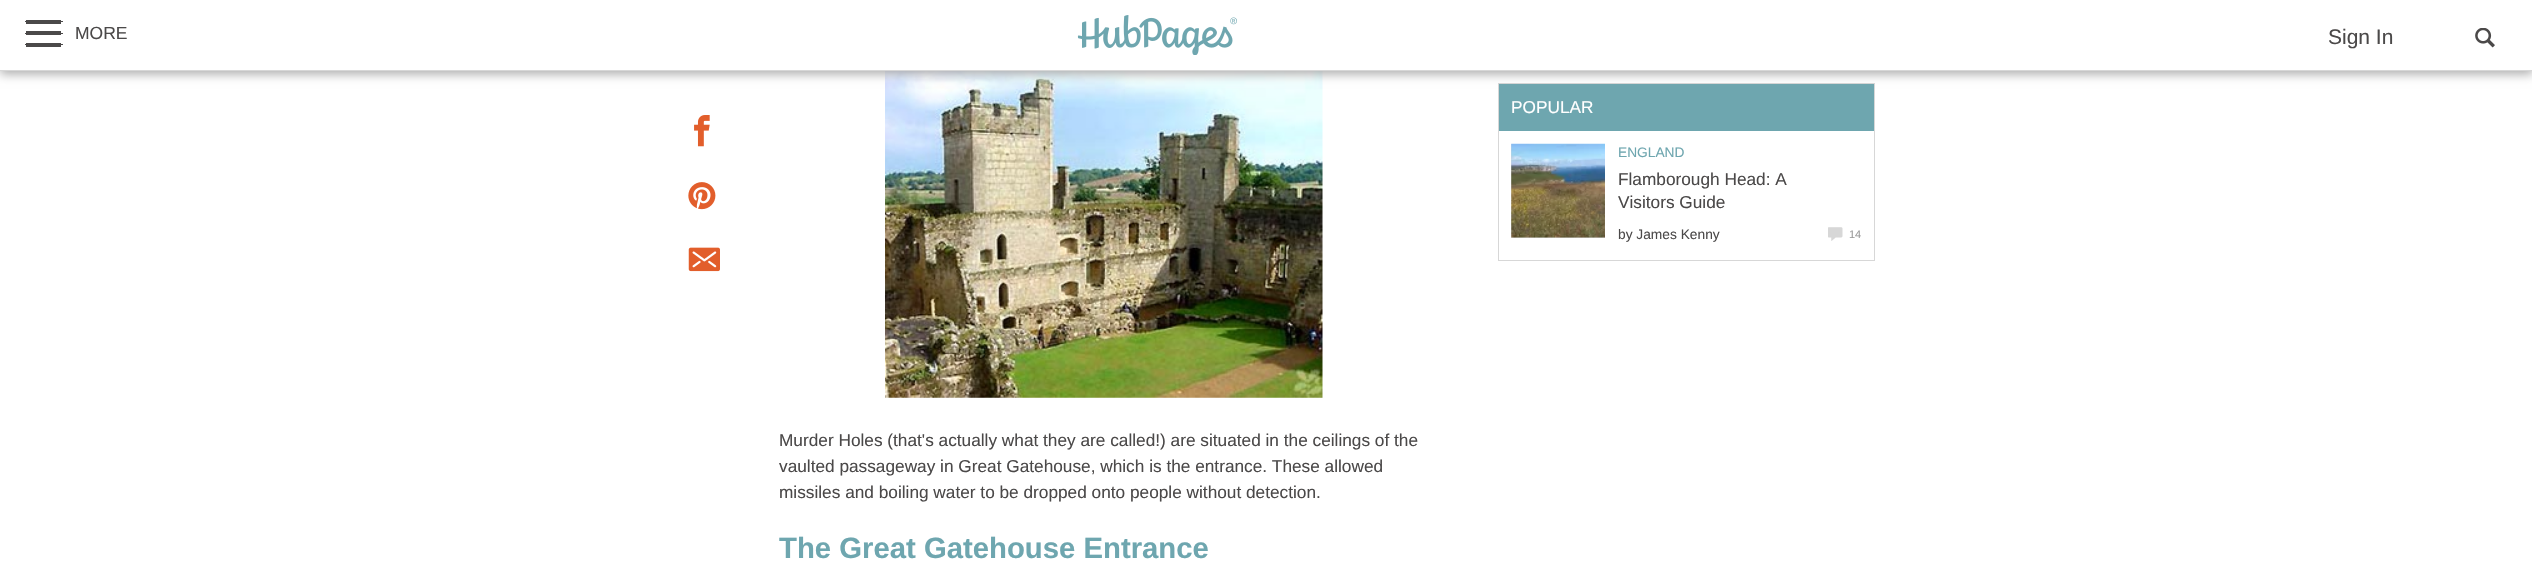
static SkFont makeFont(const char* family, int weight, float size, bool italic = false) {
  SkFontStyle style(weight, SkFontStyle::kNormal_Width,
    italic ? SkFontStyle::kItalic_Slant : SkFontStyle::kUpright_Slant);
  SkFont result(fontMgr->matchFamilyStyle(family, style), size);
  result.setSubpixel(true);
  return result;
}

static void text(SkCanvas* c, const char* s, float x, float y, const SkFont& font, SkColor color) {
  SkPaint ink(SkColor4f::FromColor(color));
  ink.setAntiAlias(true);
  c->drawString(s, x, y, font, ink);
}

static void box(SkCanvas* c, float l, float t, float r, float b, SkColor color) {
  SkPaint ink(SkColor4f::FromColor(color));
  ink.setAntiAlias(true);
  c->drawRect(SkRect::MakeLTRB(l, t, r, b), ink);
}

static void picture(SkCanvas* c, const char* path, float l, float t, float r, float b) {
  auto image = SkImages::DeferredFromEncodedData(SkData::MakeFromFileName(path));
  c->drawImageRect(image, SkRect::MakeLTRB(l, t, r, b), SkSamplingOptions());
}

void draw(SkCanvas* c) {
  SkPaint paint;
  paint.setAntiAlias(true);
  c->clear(0xffffffff);
  paint.setStyle(SkPaint::kStroke_Style);
  paint.setStrokeWidth(1);
  paint.setColor(0xffd7d7d7);
  c->drawRect(SkRect::MakeLTRB(1498.5f, 83.5f, 1874.5f, 260.5f), paint);
  box(c, 1499, 84, 1874, 131, 0xff6ea6af);
  picture(c, "img_08.png", 885, 71, 1323, 398);
  paint.setStyle(SkPaint::kFill_Style);
  paint.setColor(0xffaaaaaa);
  paint.setMaskFilter(SkMaskFilter::MakeBlur(kNormal_SkBlurStyle, 5));
  c->drawRect(SkRect::MakeLTRB(0, 3, 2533, 74), paint);
  paint.setMaskFilter(nullptr);
  box(c, 0, 0, 2532, 70, 0xffffffff);
  box(c, 0, 70, 2532, 71, 0xffd7d7d7);
  box(c, 59, 21, 63, 22, 0xff4b4949);
  box(c, 26, 20, 61, 24, 0xff4b4949);
  box(c, 25, 21, 29, 22, 0xff4b4949);
  box(c, 59, 33, 63, 34, 0xff4b4949);
  box(c, 26, 31, 61, 35, 0xff4b4949);
  box(c, 25, 33, 29, 34, 0xff4b4949);
  box(c, 59, 44, 63, 45, 0xff4b4949);
  box(c, 26, 43, 61, 47, 0xff4b4949);
  box(c, 25, 44, 29, 45, 0xff4b4949);
  SkFont face1 = makeFont("Liberation Sans", 400, 17.5f);
  text(c, "MORE", 75, 39, face1, 0xff4b4949);
  picture(c, "img_01.png", 1077, 15, 1237, 55);
  SkFont face2 = makeFont("Liberation Sans", 400, 21);
  text(c, "Sign In", 2328, 44, face2, 0xff4b4949);
  picture(c, "img_02.png", 2475, 28, 2495, 48);
  picture(c, "img_03.png", 694, 115, 710, 147);
  picture(c, "img_04.png", 688, 182, 716, 210);
  picture(c, "img_05.png", 688, 247, 720, 272);
  SkFont face3 = makeFont("Liberation Sans", 400, 17.25f);
  text(c, "POPULAR", 1511, 113, face3, 0xffffffff);
  box(c, 1511, 144, 1605, 238, 0xffd7d7d7);
  picture(c, "img_06.png", 1511, 143, 1605, 238);
  SkFont face4 = makeFont("Liberation Sans", 400, 13.75f);
  text(c, "ENGLAND", 1618, 157, face4, 0xff6ea6af);
  text(c, "Flamborough Head: A", 1618, 185, face3, 0xff4b4949);
  text(c, "Visitors Guide", 1618, 208, face3, 0xff4b4949);
  text(c, "by James Kenny", 1618, 239, face4, 0xff4b4949);
  picture(c, "img_07.png", 1828, 227, 1843, 241);
  SkFont face5 = makeFont("Liberation Sans", 400, 11);
  text(c, "14", 1849, 238, face5, 0xff999999);
  text(c, "Murder Holes (that's actually what they are called!) are situated in the ceilings of the", 779, 446, face3, 0xff4b4949);
  text(c, "vaulted passageway in Great Gatehouse, which is the entrance. These allowed", 779, 472, face3, 0xff4b4949);
  text(c, "missiles and boiling water to be dropped onto people without detection.", 779, 498, face3, 0xff4b4949);
  SkFont face6 = makeFont("Liberation Sans", 700, 29.3f);
  text(c, "The Great Gatehouse Entrance", 779, 558, face6, 0xff6ea6af);
}
